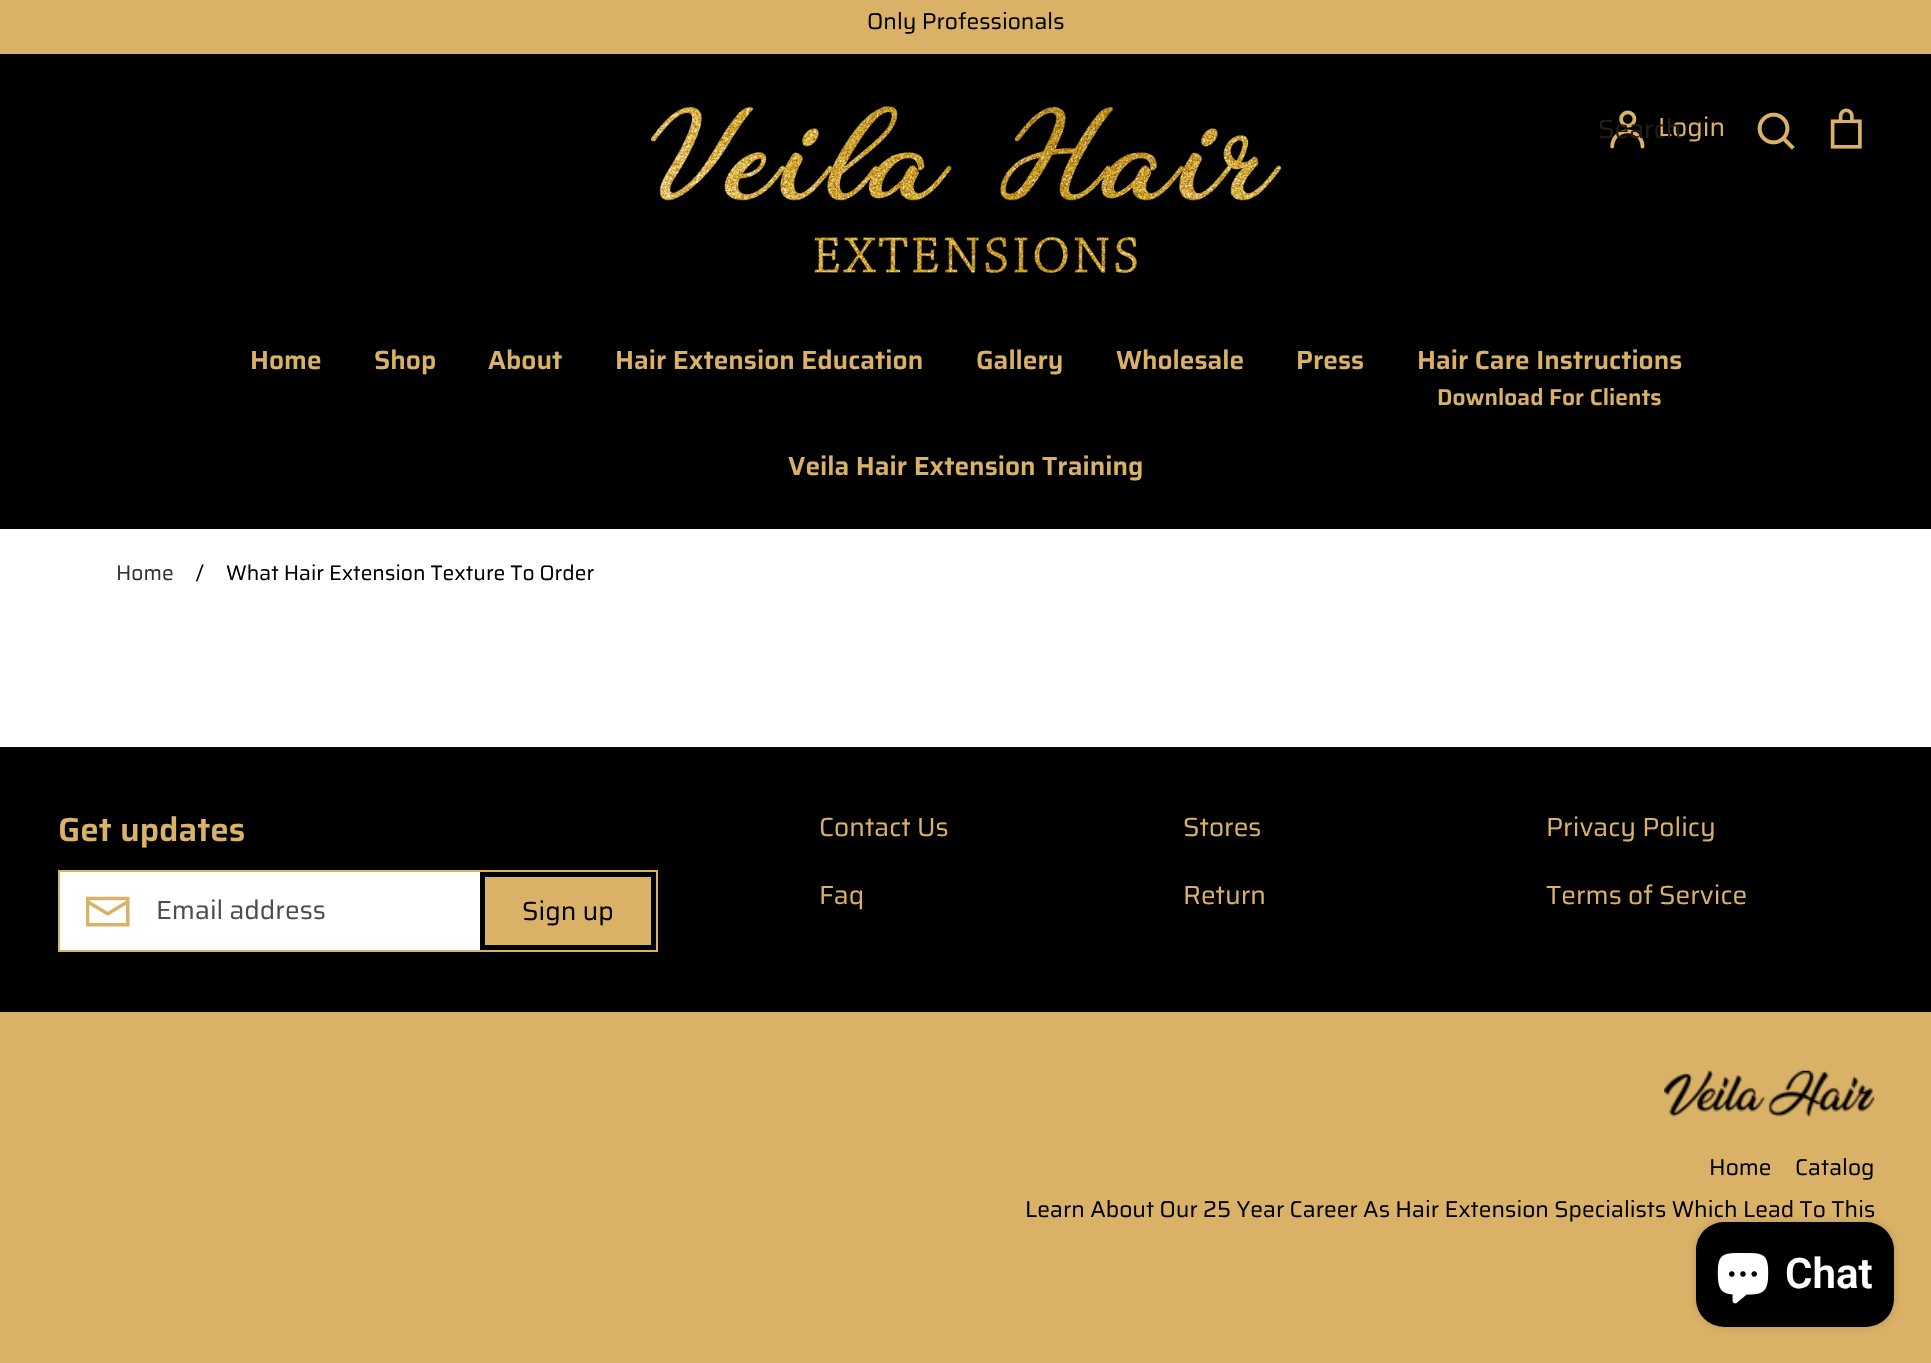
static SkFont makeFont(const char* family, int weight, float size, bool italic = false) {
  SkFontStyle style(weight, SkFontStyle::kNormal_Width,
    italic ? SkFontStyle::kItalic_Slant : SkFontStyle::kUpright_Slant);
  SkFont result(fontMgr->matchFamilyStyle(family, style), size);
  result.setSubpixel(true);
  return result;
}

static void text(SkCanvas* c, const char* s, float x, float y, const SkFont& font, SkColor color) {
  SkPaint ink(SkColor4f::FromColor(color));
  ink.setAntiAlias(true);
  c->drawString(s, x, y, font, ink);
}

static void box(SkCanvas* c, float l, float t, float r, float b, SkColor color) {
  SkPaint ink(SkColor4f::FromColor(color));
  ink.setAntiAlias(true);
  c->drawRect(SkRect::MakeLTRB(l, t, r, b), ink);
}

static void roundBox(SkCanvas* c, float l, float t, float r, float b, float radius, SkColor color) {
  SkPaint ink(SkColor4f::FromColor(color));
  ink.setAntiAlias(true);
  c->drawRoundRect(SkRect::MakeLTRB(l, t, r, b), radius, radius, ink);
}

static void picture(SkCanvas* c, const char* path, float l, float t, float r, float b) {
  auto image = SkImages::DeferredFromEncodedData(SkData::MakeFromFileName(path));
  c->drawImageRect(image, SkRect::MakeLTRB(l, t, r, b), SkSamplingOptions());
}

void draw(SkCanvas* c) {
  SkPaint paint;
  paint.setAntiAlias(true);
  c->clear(0xffffffff);
  box(c, 0, 0, 1931, 54, 0xffdab267);
  SkFont face1 = makeFont("Saira", 400, 22.75f);
  text(c, "Only Professionals", 867, 29, face1, 0xff000000);
  box(c, 0, 54, 1931, 529, 0xff000000);
  picture(c, "img_01.png", 651, 106, 1281, 273);
  picture(c, "img_03.png", 1610, 110, 1645, 149);
  SkFont face2 = makeFont("Saira", 400, 26.25f);
  text(c, "Login", 1658, 136, face2, 0xffdab267);
  text(c, "Search", 1598, 138, face2, 0xff241d11);
  picture(c, "img_02.png", 1757, 112, 1795, 150);
  picture(c, "img_04.png", 1830, 108, 1862, 149);
  SkFont face3 = makeFont("Saira", 600, 26.25f);
  text(c, "Home", 250, 369, face3, 0xffdab267);
  text(c, "Shop", 374, 369, face3, 0xffdab267);
  text(c, "About", 488, 369, face3, 0xffdab267);
  text(c, "Hair Extension Education", 615, 369, face3, 0xffdab267);
  text(c, "Gallery", 976, 369, face3, 0xffdab267);
  text(c, "Wholesale", 1116, 369, face3, 0xffdab267);
  text(c, "Press", 1296, 369, face3, 0xffdab267);
  text(c, "Hair Care Instructions", 1417, 369, face3, 0xffdab267);
  SkFont face4 = makeFont("Saira", 600, 22.75f);
  text(c, "Download For Clients", 1437, 405, face4, 0xffdab267);
  text(c, "Veila Hair Extension Training", 788, 475, face3, 0xffdab267);
  SkFont face5 = makeFont("Saira", 400, 21);
  text(c, "Home", 116, 580, face5, 0xff333333);
  text(c, "/", 196, 580, face5, 0xff000000);
  text(c, "What Hair Extension Texture To Order", 226, 580, face5, 0xff000000);
  box(c, 0, 747, 1931, 1012, 0xff000000);
  SkFont face6 = makeFont("Saira", 600, 33.25f);
  text(c, "Get updates", 58, 841, face6, 0xffdab267);
  paint.setStyle(SkPaint::kStroke_Style);
  paint.setStrokeWidth(2);
  paint.setColor(0xffdab267);
  c->drawRect(SkRect::MakeLTRB(59, 871, 657, 951), paint);
  box(c, 60, 872, 480, 950, 0xffffffff);
  picture(c, "img_05.png", 86, 896, 130, 927);
  text(c, "Email address", 156, 919, face2, 0xff4d4d4d);
  box(c, 485, 877, 651, 945, 0xffdab267);
  text(c, "Sign up", 522, 920, face2, 0xff000000);
  text(c, "Contact Us", 819, 836, face2, 0xffdab267);
  text(c, "Stores", 1183, 836, face2, 0xffdab267);
  text(c, "Privacy Policy", 1546, 836, face2, 0xffdab267);
  text(c, "Faq", 819, 904, face2, 0xffdab267);
  text(c, "Return", 1183, 904, face2, 0xffdab267);
  text(c, "Terms of Service", 1546, 904, face2, 0xffdab267);
  box(c, 0, 1012, 1931, 1363, 0xffdab267);
  picture(c, "img_06.png", 1664, 1070, 1875, 1117);
  text(c, "Home", 1709, 1175, face1, 0xff000000);
  text(c, "Catalog", 1795, 1175, face1, 0xff000000);
  text(c, "Learn About Our 25 Year Career As Hair Extension Specialists Which Lead To This", 1025, 1217, face1, 0xff000000);
  paint.setStyle(SkPaint::kFill_Style);
  paint.setColor(0x26000000);
  paint.setMaskFilter(SkMaskFilter::MakeBlur(kNormal_SkBlurStyle, 4.5f));
  c->drawRoundRect(SkRect::MakeLTRB(1696, 1222, 1894, 1327), 28, 28, paint);
  paint.setMaskFilter(nullptr);
  roundBox(c, 1696, 1222, 1894, 1327, 28, 0xff000000);
  picture(c, "img_07.png", 1717, 1253, 1769, 1304);
  SkFont face7 = makeFont("Roboto", 600, 42);
  text(c, "Chat", 1785, 1288, face7, 0xffffffff);
}
